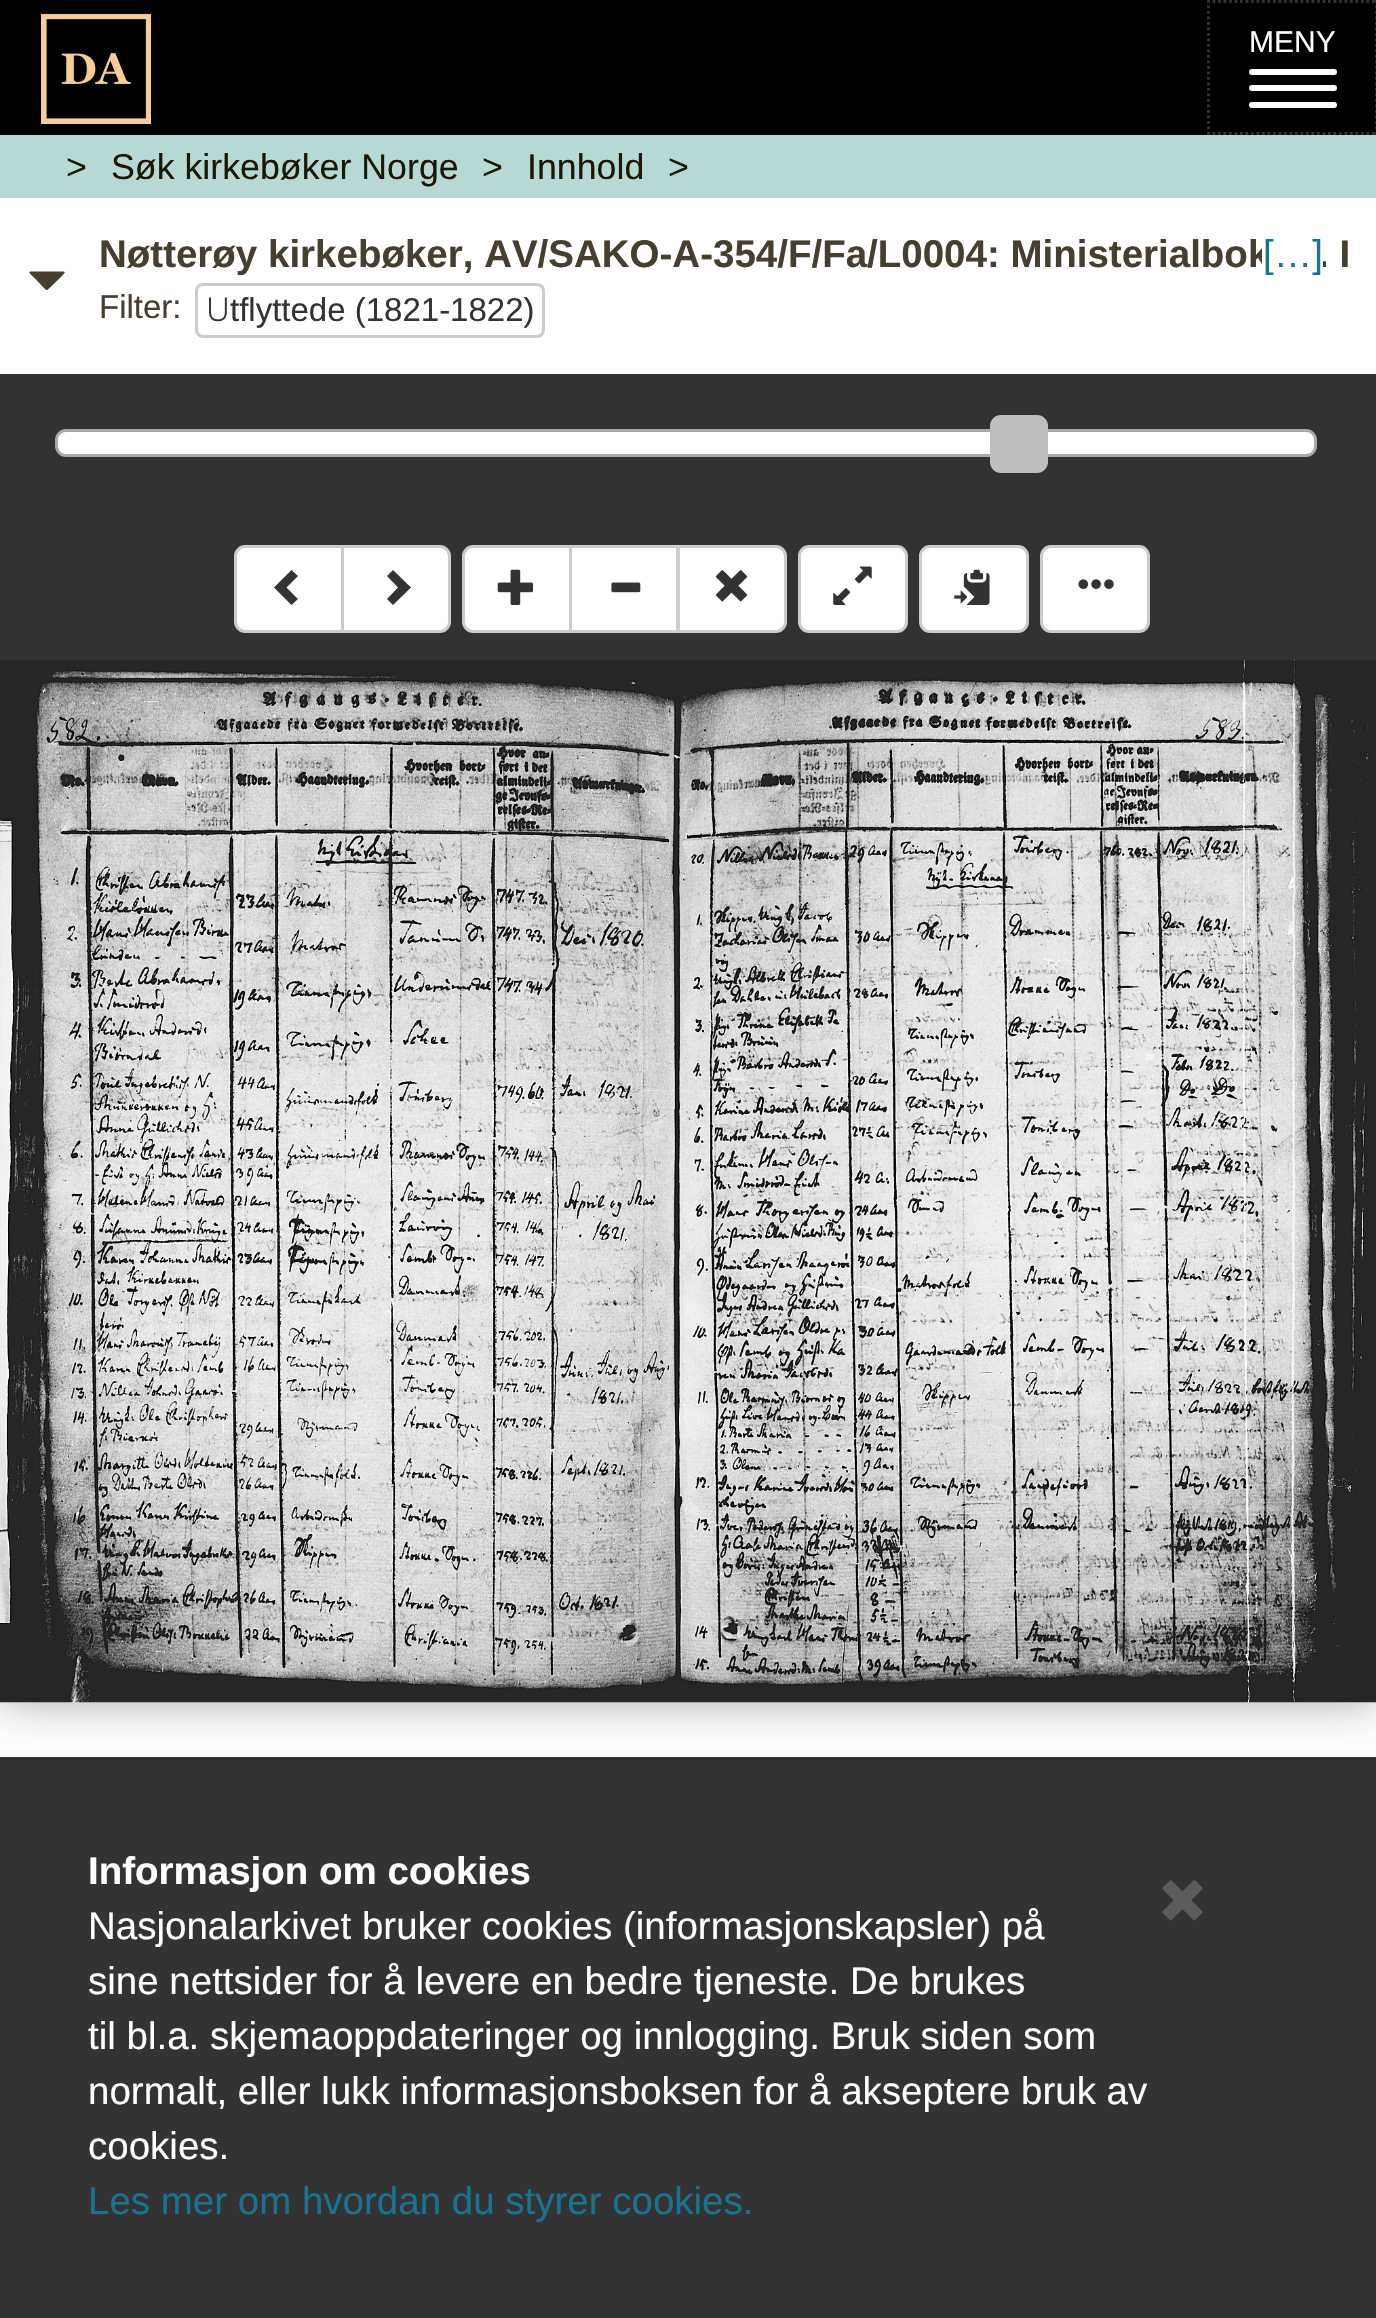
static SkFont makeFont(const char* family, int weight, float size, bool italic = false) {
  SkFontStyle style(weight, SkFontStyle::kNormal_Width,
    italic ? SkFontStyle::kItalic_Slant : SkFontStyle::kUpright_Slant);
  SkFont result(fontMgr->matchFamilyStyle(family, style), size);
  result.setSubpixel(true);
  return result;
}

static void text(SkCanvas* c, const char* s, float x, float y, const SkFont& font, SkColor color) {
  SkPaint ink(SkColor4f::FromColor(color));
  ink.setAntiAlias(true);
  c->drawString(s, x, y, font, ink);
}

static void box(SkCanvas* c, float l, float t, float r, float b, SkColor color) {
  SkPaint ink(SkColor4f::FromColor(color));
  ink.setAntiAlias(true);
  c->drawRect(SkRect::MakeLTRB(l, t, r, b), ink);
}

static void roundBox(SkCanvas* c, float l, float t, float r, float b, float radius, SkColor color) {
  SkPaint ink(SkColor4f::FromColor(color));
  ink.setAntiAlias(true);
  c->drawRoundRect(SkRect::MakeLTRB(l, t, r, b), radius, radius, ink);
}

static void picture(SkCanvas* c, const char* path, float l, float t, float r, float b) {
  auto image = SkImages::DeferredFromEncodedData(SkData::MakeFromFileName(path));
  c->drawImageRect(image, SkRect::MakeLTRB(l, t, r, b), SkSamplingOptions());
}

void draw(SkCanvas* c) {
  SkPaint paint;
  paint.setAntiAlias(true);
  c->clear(0xffffffff);
  box(c, 0, 0, 1376, 135, 0xff000000);
  picture(c, "img_01.png", 41, 14, 151, 124);
  paint.setStyle(SkPaint::kStroke_Style);
  paint.setStrokeWidth(2.8f);
  paint.setColor(0xff333333);
  paint.setPathEffect(SkDashPathEffect::Make({{2.75f, 2.75f}}, 0));
  c->drawPath(SkPathBuilder().moveTo(1207, 1.5f).lineTo(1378, 1.5f).detach(), paint);
  paint.setPathEffect(nullptr);
  paint.setPathEffect(SkDashPathEffect::Make({{2.75f, 2.75f}}, 0));
  c->drawPath(SkPathBuilder().moveTo(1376.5f, 0).lineTo(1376.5f, 135).detach(), paint);
  paint.setPathEffect(nullptr);
  paint.setPathEffect(SkDashPathEffect::Make({{2.75f, 2.75f}}, 0));
  c->drawPath(SkPathBuilder().moveTo(1207, 133.5f).lineTo(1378, 133.5f).detach(), paint);
  paint.setPathEffect(nullptr);
  paint.setPathEffect(SkDashPathEffect::Make({{2.75f, 2.75f}}, 0));
  c->drawPath(SkPathBuilder().moveTo(1208.5f, 0).lineTo(1208.5f, 135).detach(), paint);
  paint.setPathEffect(nullptr);
  SkFont face1 = makeFont("Liberation Sans", 400, 30);
  text(c, "MENY", 1249, 52, face1, 0xffffffff);
  roundBox(c, 1249, 69, 1337, 75, 3, 0xffffffff);
  roundBox(c, 1249, 85, 1337, 91, 3, 0xffffffff);
  roundBox(c, 1249, 102, 1337, 108, 3, 0xffffffff);
  box(c, 0, 135, 1376, 198, 0xffb6d9d6);
  SkFont face2 = makeFont("Liberation Sans", 400, 35.75f);
  text(c, ">", 66, 179, face2, 0xff1d1705);
  text(c, "Søk kirkebøker Norge", 111, 179, face2, 0xff1d1705);
  text(c, ">", 482, 179, face2, 0xff1d1705);
  text(c, "Innhold", 527, 179, face2, 0xff1d1705);
  text(c, ">", 668, 179, face2, 0xff1d1705);
  paint.setStyle(SkPaint::kFill_Style);
  paint.setColor(0xff463e2f);
  c->drawPath(SkPathBuilder().moveTo(31, 271.5f).lineTo(63, 271.5f).cubicTo(67.5f, 271.5f, 61.5f, 276, 61.5f, 276.5f).lineTo(48, 289.5f).cubicTo(46.5f, 291.5f, 44, 287.5f, 43, 287).lineTo(35.5f, 279).cubicTo(32, 275.5f, 26.5f, 271.5f, 31, 271.5f).close().detach(), paint);
  SkFont face3 = makeFont("Liberation Sans", 700, 38.5f);
  text(c, "Nøtterøy kirkebøker, AV/SAKO-A-354/F/Fa/L0004: Ministerialbok", 99, 267, face3, 0xff463e2f);
  text(c, ". I", 1318, 267, face3, 0xff463e2f);
  box(c, 1262, 246, 1323, 267, 0xffffffff);
  SkFont face4 = makeFont("Liberation Sans", 400, 38.5f);
  text(c, "[…]", 1263, 267, face4, 0xff177391);
  SkFont face5 = makeFont("Liberation Sans", 400, 33);
  text(c, "Filter:", 99, 318, face5, 0xff463e2f);
  paint.setStyle(SkPaint::kStroke_Style);
  paint.setStrokeWidth(3);
  paint.setColor(0xffcccccc);
  c->drawRoundRect(SkRect::MakeLTRB(196.5f, 284.5f, 543.5f, 336.5f), 6.5f, 6.5f, paint);
  SkFont face6 = makeFont("Noto Sans", 300, 33);
  text(c, "U", 206, 321, face6, 0xff333333);
  text(c, "tflyttede (1821-1822)", 230, 321, face5, 0xff333333);
  box(c, 0, 374, 1376, 660, 0xff333231);
  paint.setStyle(SkPaint::kFill_Style);
  paint.setColor(0xffffffff);
  c->drawRoundRect(SkRect::MakeLTRB(56.5f, 430.5f, 1315.5f, 455.5f), 9.5f, 9.5f, paint);
  paint.setStyle(SkPaint::kStroke_Style);
  paint.setColor(0xffaaaaaa);
  c->drawRoundRect(SkRect::MakeLTRB(56.5f, 430.5f, 1315.5f, 455.5f), 9.5f, 9.5f, paint);
  paint.setStyle(SkPaint::kFill_Style);
  paint.setColor(0xffbfbebd);
  c->drawRoundRect(SkRect::MakeLTRB(991.5f, 416.5f, 1046.5f, 471.5f), 9.5f, 9.5f, paint);
  paint.setStyle(SkPaint::kStroke_Style);
  c->drawRoundRect(SkRect::MakeLTRB(991.5f, 416.5f, 1046.5f, 471.5f), 9.5f, 9.5f, paint);
  paint.setStyle(SkPaint::kFill_Style);
  paint.setColor(0xffffffff);
  c->drawPath(SkPathBuilder().moveTo(473, 546.5f).lineTo(570.5f, 546.5f).lineTo(570.5f, 631.5f).lineTo(473, 631.5f).cubicTo(468, 631.5f, 463.5f, 627, 463.5f, 622).lineTo(463.5f, 556).cubicTo(463.5f, 551, 468, 546.5f, 473, 546.5f).close().detach(), paint);
  paint.setStyle(SkPaint::kStroke_Style);
  paint.setColor(0xffcccccc);
  c->drawPath(SkPathBuilder().moveTo(473, 546.5f).lineTo(570.5f, 546.5f).lineTo(570.5f, 631.5f).lineTo(473, 631.5f).cubicTo(468, 631.5f, 463.5f, 627, 463.5f, 622).lineTo(463.5f, 556).cubicTo(463.5f, 551, 468, 546.5f, 473, 546.5f).close().detach(), paint);
  picture(c, "img_02.png", 497, 569, 534, 605);
  paint.setStyle(SkPaint::kFill_Style);
  paint.setColor(0xffffffff);
  c->drawRect(SkRect::MakeLTRB(570.5f, 546.5f, 677.5f, 631.5f), paint);
  paint.setStyle(SkPaint::kStroke_Style);
  paint.setColor(0xffcccccc);
  c->drawRect(SkRect::MakeLTRB(570.5f, 546.5f, 677.5f, 631.5f), paint);
  paint.setStyle(SkPaint::kFill_Style);
  paint.setColor(0xffffffff);
  c->drawPath(SkPathBuilder().moveTo(678.5f, 546.5f).lineTo(776, 546.5f).cubicTo(781, 546.5f, 785.5f, 551, 785.5f, 556).lineTo(785.5f, 622).cubicTo(785.5f, 627, 781, 631.5f, 776, 631.5f).lineTo(678.5f, 631.5f).close().detach(), paint);
  paint.setStyle(SkPaint::kStroke_Style);
  paint.setColor(0xffcccccc);
  c->drawPath(SkPathBuilder().moveTo(678.5f, 546.5f).lineTo(776, 546.5f).cubicTo(781, 546.5f, 785.5f, 551, 785.5f, 556).lineTo(785.5f, 622).cubicTo(785.5f, 627, 781, 631.5f, 776, 631.5f).lineTo(678.5f, 631.5f).close().detach(), paint);
  picture(c, "img_04.png", 715, 570, 748, 602);
  paint.setStyle(SkPaint::kFill_Style);
  paint.setColor(0xffffffff);
  c->drawRoundRect(SkRect::MakeLTRB(799.5f, 546.5f, 906.5f, 631.5f), 9.5f, 9.5f, paint);
  paint.setStyle(SkPaint::kStroke_Style);
  paint.setColor(0xffcccccc);
  c->drawRoundRect(SkRect::MakeLTRB(799.5f, 546.5f, 906.5f, 631.5f), 9.5f, 9.5f, paint);
  picture(c, "img_05.png", 833, 566, 872, 605);
  paint.setStyle(SkPaint::kFill_Style);
  paint.setColor(0xffffffff);
  c->drawRoundRect(SkRect::MakeLTRB(920.5f, 546.5f, 1027.5f, 631.5f), 9.5f, 9.5f, paint);
  paint.setStyle(SkPaint::kStroke_Style);
  paint.setColor(0xffcccccc);
  c->drawRoundRect(SkRect::MakeLTRB(920.5f, 546.5f, 1027.5f, 631.5f), 9.5f, 9.5f, paint);
  picture(c, "img_06.png", 954, 569, 990, 605);
  paint.setStyle(SkPaint::kFill_Style);
  paint.setColor(0xffffffff);
  c->drawRoundRect(SkRect::MakeLTRB(1041.5f, 546.5f, 1148.5f, 631.5f), 9.5f, 9.5f, paint);
  paint.setStyle(SkPaint::kStroke_Style);
  paint.setColor(0xffcccccc);
  c->drawRoundRect(SkRect::MakeLTRB(1041.5f, 546.5f, 1148.5f, 631.5f), 9.5f, 9.5f, paint);
  c->save();
  c->clipRect(SkRect::MakeLTRB(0, 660, 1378, 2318));
  paint.setStyle(SkPaint::kFill_Style);
  paint.setColor(0x4d000000);
  paint.setMaskFilter(SkMaskFilter::MakeBlur(kNormal_SkBlurStyle, 20.5f));
  c->drawRect(SkRect::MakeLTRB(0, 663, 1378, 1705), paint);
  paint.setMaskFilter(nullptr);
  c->restore();
  paint.setColor(0xffffffff);
  c->drawPath(SkPathBuilder().moveTo(245, 546.5f).lineTo(342.5f, 546.5f).lineTo(342.5f, 631.5f).lineTo(245, 631.5f).cubicTo(240, 631.5f, 235.5f, 627, 235.5f, 622).lineTo(235.5f, 556).cubicTo(235.5f, 551, 240, 546.5f, 245, 546.5f).close().detach(), paint);
  paint.setStyle(SkPaint::kStroke_Style);
  paint.setColor(0xffcccccc);
  c->drawPath(SkPathBuilder().moveTo(245, 546.5f).lineTo(342.5f, 546.5f).lineTo(342.5f, 631.5f).lineTo(245, 631.5f).cubicTo(240, 631.5f, 235.5f, 627, 235.5f, 622).lineTo(235.5f, 556).cubicTo(235.5f, 551, 240, 546.5f, 245, 546.5f).close().detach(), paint);
  paint.setStyle(SkPaint::kFill_Style);
  paint.setColor(0xff333333);
  c->drawPath(SkPathBuilder().moveTo(298, 576).lineTo(286.5f, 587.5f).lineTo(298, 599).lineTo(291.5f, 605).lineTo(274, 587.5f).lineTo(291.5f, 570).close().detach(), paint);
  paint.setColor(0xffffffff);
  c->drawPath(SkPathBuilder().moveTo(342.5f, 546.5f).lineTo(440, 546.5f).cubicTo(445, 546.5f, 449.5f, 551, 449.5f, 556).lineTo(449.5f, 622).cubicTo(449.5f, 627, 445, 631.5f, 440, 631.5f).lineTo(342.5f, 631.5f).close().detach(), paint);
  paint.setStyle(SkPaint::kStroke_Style);
  paint.setColor(0xffcccccc);
  c->drawPath(SkPathBuilder().moveTo(342.5f, 546.5f).lineTo(440, 546.5f).cubicTo(445, 546.5f, 449.5f, 551, 449.5f, 556).lineTo(449.5f, 622).cubicTo(449.5f, 627, 445, 631.5f, 440, 631.5f).lineTo(342.5f, 631.5f).close().detach(), paint);
  paint.setStyle(SkPaint::kFill_Style);
  paint.setColor(0xff333333);
  c->drawPath(SkPathBuilder().moveTo(411, 587.5f).lineTo(393, 605).lineTo(387, 599).lineTo(398, 587.5f).lineTo(387, 576).lineTo(393, 570).close().detach(), paint);
  picture(c, "img_03.png", 611, 582, 641, 593);
  picture(c, "img_07.png", 1078, 579, 1114, 589);
  picture(c, "img_08.png", 0, 660, 1376, 1703);
  box(c, 0, 1757, 1376, 2318, 0xff333333);
  text(c, "Informasjon om cookies", 88, 1884, face3, 0xffffffff);
  picture(c, "img_09.png", 1162, 1880, 1203, 1921);
  text(c, "Nasjonalarkivet bruker cookies (informasjonskapsler) på", 88, 1939, face4, 0xffffffff);
  text(c, "sine nettsider for å levere en bedre tjeneste. De brukes", 88, 1994, face4, 0xffffffff);
  text(c, "til bl.a. skjemaoppdateringer og innlogging. Bruk siden som", 88, 2049, face4, 0xffffffff);
  text(c, "normalt, eller lukk informasjonsboksen for å akseptere bruk av", 88, 2104, face4, 0xffffffff);
  text(c, "cookies.", 88, 2159, face4, 0xffffffff);
  text(c, "Les mer om hvordan du styrer cookies.", 88, 2214, face4, 0xff177391);
}
